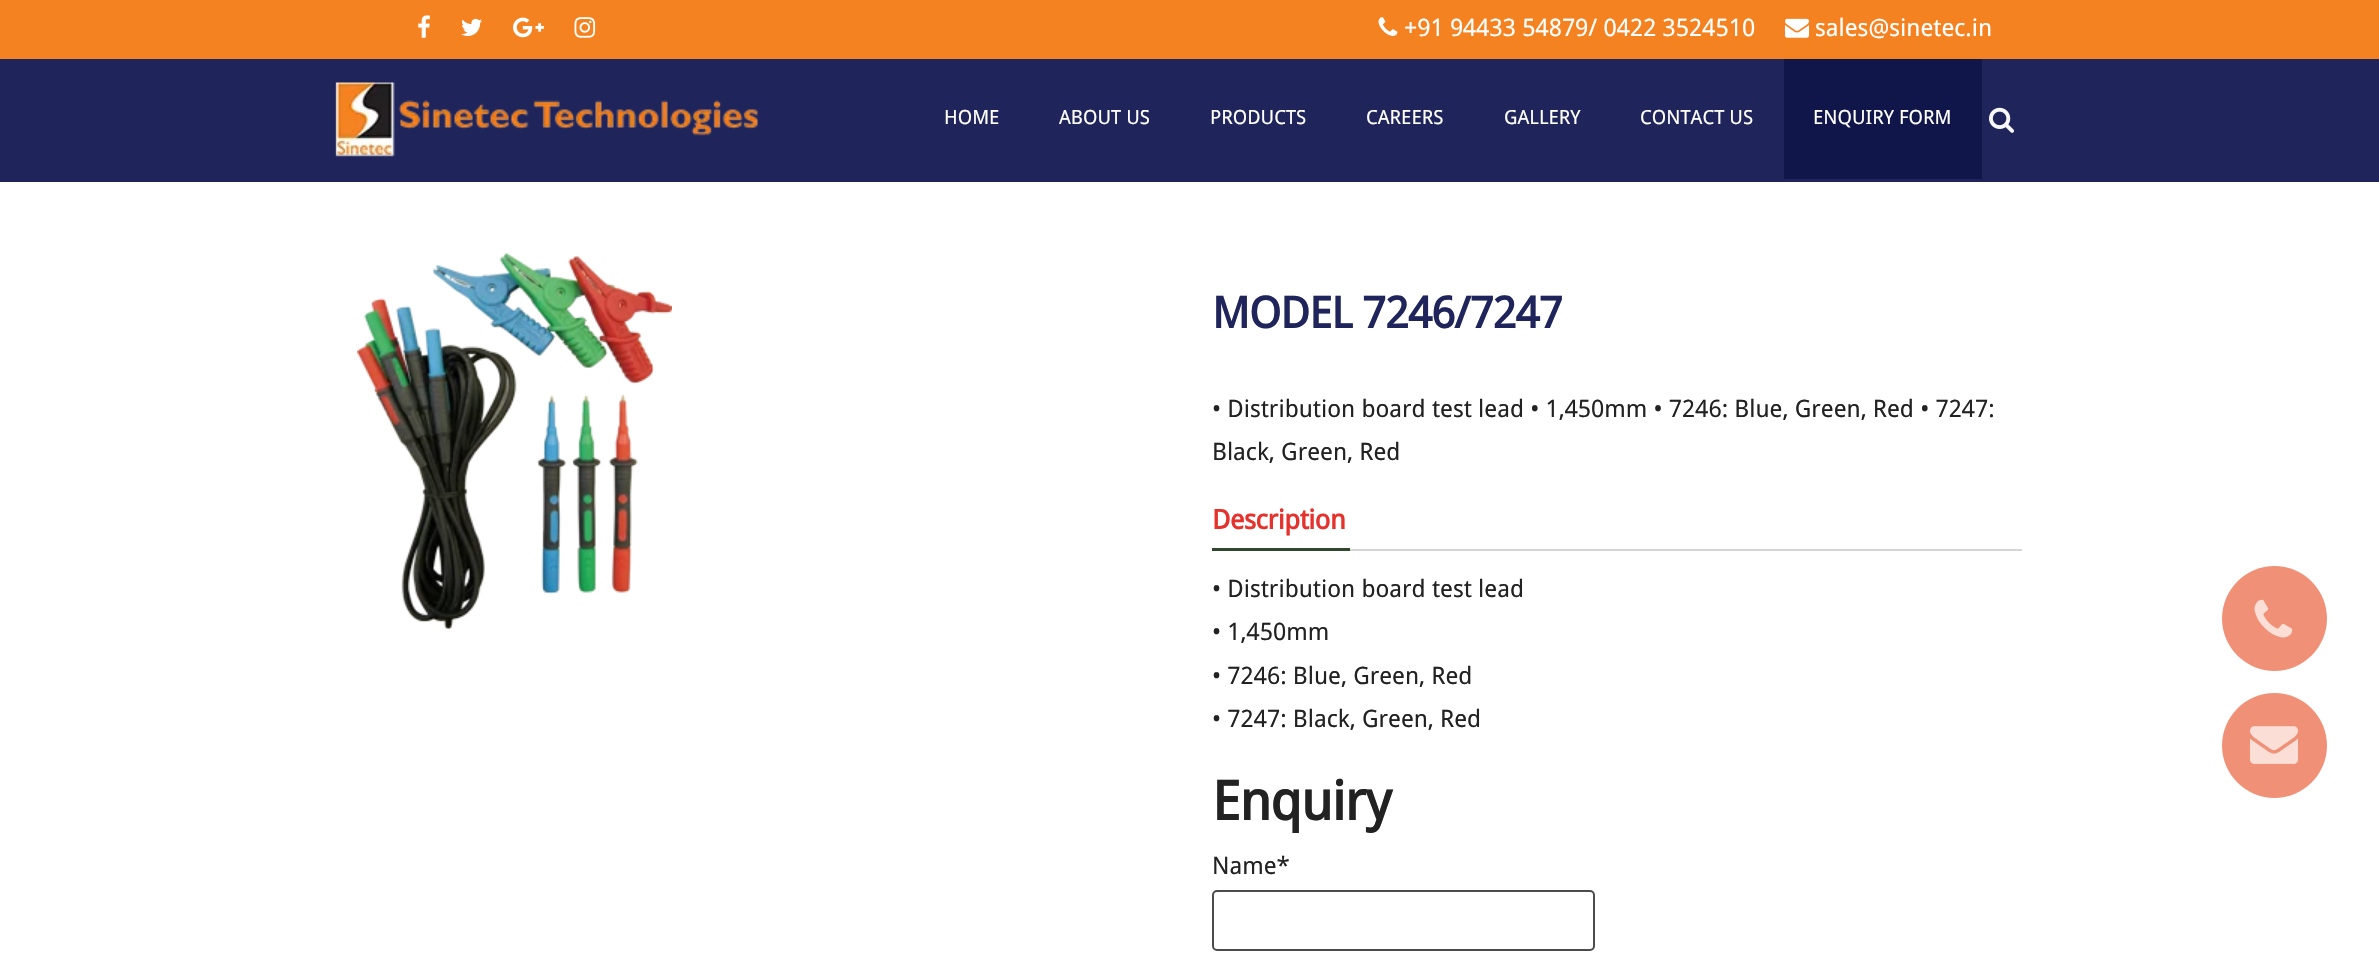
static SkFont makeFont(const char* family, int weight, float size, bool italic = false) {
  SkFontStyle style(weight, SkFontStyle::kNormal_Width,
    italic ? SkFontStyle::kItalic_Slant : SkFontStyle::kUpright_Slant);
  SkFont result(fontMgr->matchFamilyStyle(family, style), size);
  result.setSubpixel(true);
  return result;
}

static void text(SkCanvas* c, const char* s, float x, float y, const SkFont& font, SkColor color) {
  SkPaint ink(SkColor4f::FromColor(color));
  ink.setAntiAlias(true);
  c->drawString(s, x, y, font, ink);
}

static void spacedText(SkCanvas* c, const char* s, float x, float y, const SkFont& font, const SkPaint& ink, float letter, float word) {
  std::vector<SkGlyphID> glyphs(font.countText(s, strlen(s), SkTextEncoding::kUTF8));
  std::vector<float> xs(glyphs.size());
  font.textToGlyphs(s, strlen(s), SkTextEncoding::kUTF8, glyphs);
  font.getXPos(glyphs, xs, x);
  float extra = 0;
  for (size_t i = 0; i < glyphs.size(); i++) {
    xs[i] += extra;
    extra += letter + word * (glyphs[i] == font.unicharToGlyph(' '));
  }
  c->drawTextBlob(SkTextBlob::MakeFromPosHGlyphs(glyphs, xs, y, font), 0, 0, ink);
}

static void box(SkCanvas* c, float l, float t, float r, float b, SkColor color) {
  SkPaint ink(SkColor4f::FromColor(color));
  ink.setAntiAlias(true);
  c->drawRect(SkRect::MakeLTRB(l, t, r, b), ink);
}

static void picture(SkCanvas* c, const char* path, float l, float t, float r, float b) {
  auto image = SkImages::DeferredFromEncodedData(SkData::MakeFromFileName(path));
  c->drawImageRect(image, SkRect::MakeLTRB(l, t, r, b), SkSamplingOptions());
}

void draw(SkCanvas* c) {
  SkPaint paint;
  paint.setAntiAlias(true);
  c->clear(0xffffffff);
  box(c, 0, 0, 2379, 59, 0xfff58220);
  picture(c, "img_01.png", 418, 15, 430, 38);
  picture(c, "img_02.png", 461, 18, 482, 36);
  picture(c, "img_03.png", 513, 17, 544, 38);
  picture(c, "img_04.png", 574, 17, 596, 38);
  picture(c, "img_05.png", 1378, 17, 1398, 36);
  SkFont face1 = makeFont("Droid Sans", 400, 24);
  text(c, "+91 94433 54879/ 0422 3524510", 1404, 36, face1, 0xffffffff);
  picture(c, "img_06.png", 1785, 18, 1809, 38);
  text(c, "sales@sinetec.in", 1815, 36, face1, 0xffffffff);
  box(c, 0, 59, 2379, 182, 0xff1f255b);
  picture(c, "img_07.png", 335, 82, 758, 157);
  SkFont face2 = makeFont("Droid Sans", 400, 19.5f);
  text(c, "HOME", 944, 124, face2, 0xffffffff);
  text(c, "ABOUT US", 1059, 124, face2, 0xffffffff);
  text(c, "PRODUCTS", 1210, 124, face2, 0xffffffff);
  text(c, "CAREERS", 1366, 124, face2, 0xffffffff);
  text(c, "GALLERY", 1504, 124, face2, 0xffffffff);
  text(c, "CONTACT US", 1640, 124, face2, 0xffffffff);
  box(c, 1784, 59, 1982, 179, 0xff101649);
  text(c, "ENQUIRY FORM", 1813, 124, face2, 0xffffffff);
  picture(c, "img_08.png", 1989, 107, 2014, 133);
  picture(c, "img_09.png", 357, 253, 672, 629);
  SkFont face3 = makeFont("Droid Sans", 700, 43.5f);
  paint.setColor(0xff1f255b);
  spacedText(c, "MODEL 7246/7247", 1212, 328, face3, paint, -0.9f, 0);
  text(c, "• Distribution board test lead • 1,450mm • 7246: Blue, Green, Red • 7247:", 1212, 417, face1, 0xff222222);
  text(c, "Black, Green, Red", 1212, 460, face1, 0xff222222);
  box(c, 1350, 549, 2022, 551, 0xffd5d5d5);
  SkFont face4 = makeFont("Droid Sans", 700, 27);
  paint.setColor(0xffe5322d);
  spacedText(c, "Description", 1212, 529, face4, paint, -0.5f, 0);
  box(c, 1212, 548, 1350, 551, 0xff2f462f);
  text(c, "• Distribution board test lead", 1212, 597, face1, 0xff222222);
  text(c, "• 1,450mm", 1212, 640, face1, 0xff222222);
  text(c, "• 7246: Blue, Green, Red", 1212, 684, face1, 0xff222222);
  text(c, "• 7247: Black, Green, Red", 1212, 727, face1, 0xff222222);
  SkFont face5 = makeFont("Droid Sans", 700, 54);
  paint.setColor(0xff222222);
  spacedText(c, "Enquiry", 1212, 820, face5, paint, -1, 0);
  text(c, "Name*", 1212, 874, face1, 0xff222222);
  paint.setStyle(SkPaint::kStroke_Style);
  paint.setStrokeWidth(2);
  paint.setColor(0xff4c4c4c);
  c->drawRoundRect(SkRect::MakeLTRB(1213, 891, 1594, 950), 4, 4, paint);
  paint.setStyle(SkPaint::kFill_Style);
  paint.setColor(0xfff09177);
  c->drawCircle(2274.5f, 618.5f, 52.5f, paint);
  picture(c, "img_10.png", 2254, 599, 2293, 638);
  c->drawCircle(2274.5f, 745.5f, 52.5f, paint);
  picture(c, "img_11.png", 2250, 726, 2298, 764);
}
